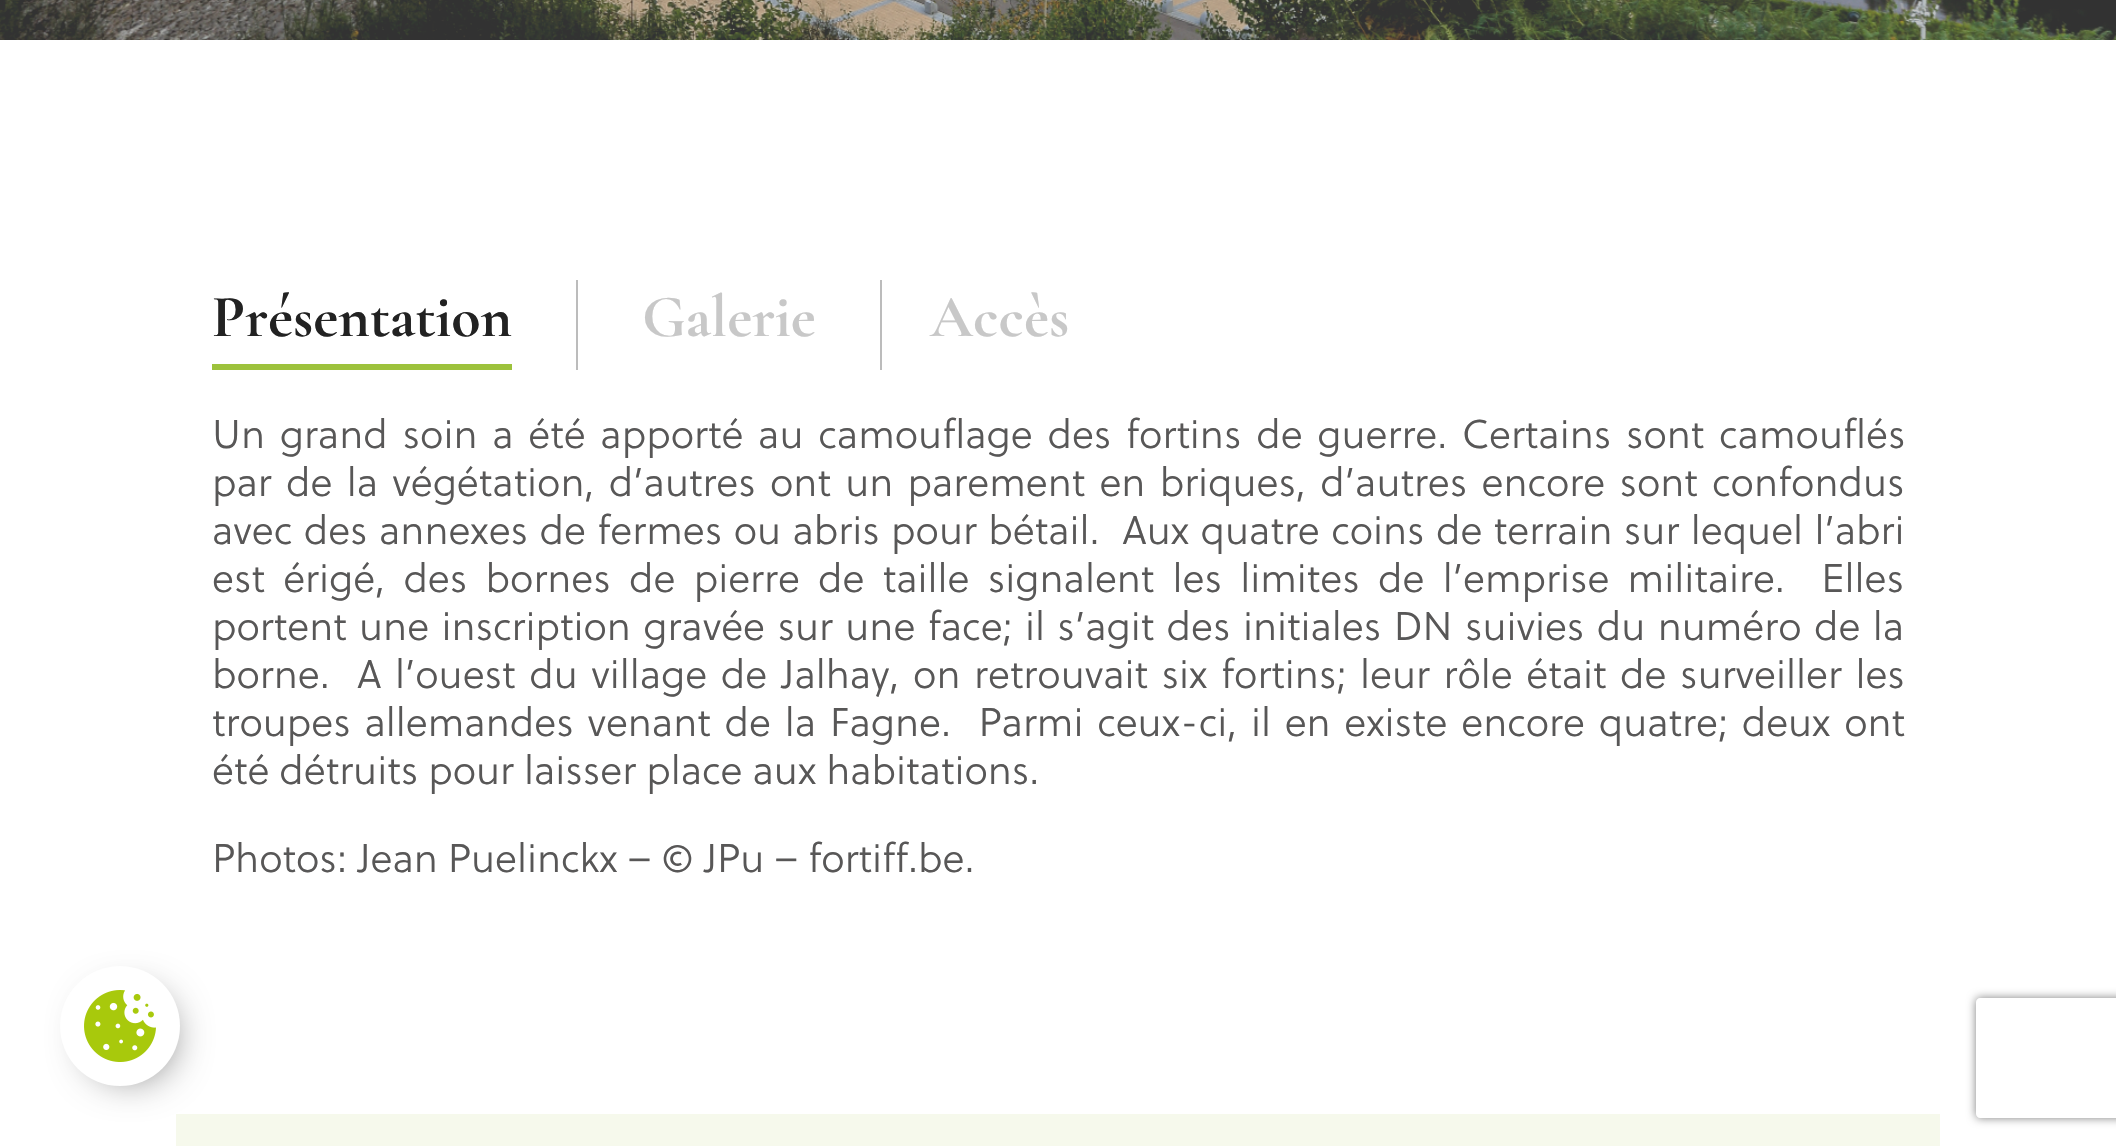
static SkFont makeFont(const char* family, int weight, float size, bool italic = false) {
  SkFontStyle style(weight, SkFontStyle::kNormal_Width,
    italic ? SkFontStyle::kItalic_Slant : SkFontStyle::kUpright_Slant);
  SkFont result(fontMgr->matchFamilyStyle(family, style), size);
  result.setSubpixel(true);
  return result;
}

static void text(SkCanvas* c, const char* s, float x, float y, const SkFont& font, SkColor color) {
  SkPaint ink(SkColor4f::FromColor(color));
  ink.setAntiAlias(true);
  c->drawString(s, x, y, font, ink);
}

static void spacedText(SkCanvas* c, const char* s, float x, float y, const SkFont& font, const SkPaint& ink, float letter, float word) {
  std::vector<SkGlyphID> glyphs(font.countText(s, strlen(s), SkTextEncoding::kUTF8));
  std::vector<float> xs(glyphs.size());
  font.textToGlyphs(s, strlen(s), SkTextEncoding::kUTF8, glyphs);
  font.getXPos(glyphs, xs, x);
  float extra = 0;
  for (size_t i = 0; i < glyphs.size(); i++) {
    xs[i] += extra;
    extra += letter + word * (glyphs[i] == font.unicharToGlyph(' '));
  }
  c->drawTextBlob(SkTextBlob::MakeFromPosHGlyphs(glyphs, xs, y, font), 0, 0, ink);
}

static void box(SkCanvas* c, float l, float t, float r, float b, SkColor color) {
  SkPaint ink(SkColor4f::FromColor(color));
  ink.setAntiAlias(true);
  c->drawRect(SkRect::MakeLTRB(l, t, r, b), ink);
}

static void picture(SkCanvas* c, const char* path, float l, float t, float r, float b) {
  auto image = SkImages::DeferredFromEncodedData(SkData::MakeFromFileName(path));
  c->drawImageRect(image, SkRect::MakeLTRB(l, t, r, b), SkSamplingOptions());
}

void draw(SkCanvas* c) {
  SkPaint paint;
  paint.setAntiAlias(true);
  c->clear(0xffffffff);
  picture(c, "img_01.png", 0, 0, 2116, 40);
  box(c, 576, 280, 578, 370, 0xffbcbcbc);
  SkFont face1 = makeFont("Cormorant Garamond", 700, 60);
  text(c, "Présentation", 212, 336, face1, 0xff222222);
  box(c, 212, 364, 512, 370, 0xff9dc23c);
  box(c, 880, 280, 882, 370, 0xffbcbcbc);
  text(c, "Galerie", 642, 336, face1, 0xffc8c8c8);
  text(c, "Accès", 930, 336, face1, 0xffc8c8c8);
  SkFont face2 = makeFont("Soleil", 300, 40);
  paint.setColor(0xff585757);
  spacedText(c, "Un grand soin a été apporté au camouflage des fortins de guerre. Certains sont camouflés", 212, 448, face2, paint, 0, 4.75f);
  spacedText(c, "par de la végétation, d’autres ont un parement en briques, d’autres encore sont confondus", 212, 496, face2, paint, 0, 4.25f);
  spacedText(c, "avec des annexes de fermes ou abris pour bétail.  Aux quatre coins de terrain sur lequel l’abri", 212, 544, face2, paint, 0, 1.4f);
  spacedText(c, "est érigé, des bornes de pierre de taille signalent les limites de l’emprise militaire.  Elles", 212, 592, face2, paint, 0, 8.25f);
  spacedText(c, "portent une inscription gravée sur une face; il s’agit des initiales DN suivies du numéro de la", 212, 640, face2, paint, 0, 2.4f);
  spacedText(c, "borne.  A l’ouest du village de Jalhay, on retrouvait six fortins; leur rôle était de surveiller les", 212, 688, face2, paint, 0, 3.6f);
  spacedText(c, "troupes allemandes venant de la Fagne.  Parmi ceux-ci, il en existe encore quatre; deux ont", 212, 736, face2, paint, 0, 3.75f);
  text(c, "été détruits pour laisser place aux habitations.", 212, 784, face2, 0xff585757);
  text(c, "Photos: Jean Puelinckx – © JPu – fortiff.be.", 212, 872, face2, 0xff585757);
  box(c, 176, 1114, 1940, 1146, 0xfff6f9ec);
  paint.setColor(0xff606060);
  paint.setMaskFilter(SkMaskFilter::MakeBlur(kNormal_SkBlurStyle, 20));
  c->drawRoundRect(SkRect::MakeLTRB(90, 996, 170, 1076), 40, 40, paint);
  paint.setMaskFilter(nullptr);
  paint.setColor(0xffffffff);
  c->drawCircle(120, 1026, 60, paint);
  picture(c, "img_02.png", 84, 990, 156, 1062);
  c->save();
  c->clipPath(SkPathBuilder(SkPathFillType::kEvenOdd).moveTo(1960, 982).lineTo(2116, 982).lineTo(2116, 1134).lineTo(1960, 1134).close().moveTo(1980, 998).lineTo(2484, 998).cubicTo(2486, 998, 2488, 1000, 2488, 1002).lineTo(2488, 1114).cubicTo(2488, 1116, 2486, 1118, 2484, 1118).lineTo(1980, 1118).cubicTo(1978, 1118, 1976, 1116, 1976, 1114).lineTo(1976, 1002).cubicTo(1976, 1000, 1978, 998, 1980, 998).close().detach(), true);
  paint.setColor(0xff808080);
  paint.setMaskFilter(SkMaskFilter::MakeBlur(kNormal_SkBlurStyle, 5));
  c->drawRoundRect(SkRect::MakeLTRB(1976, 998, 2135, 1118), 4, 4, paint);
  paint.setMaskFilter(nullptr);
  c->restore();
}
